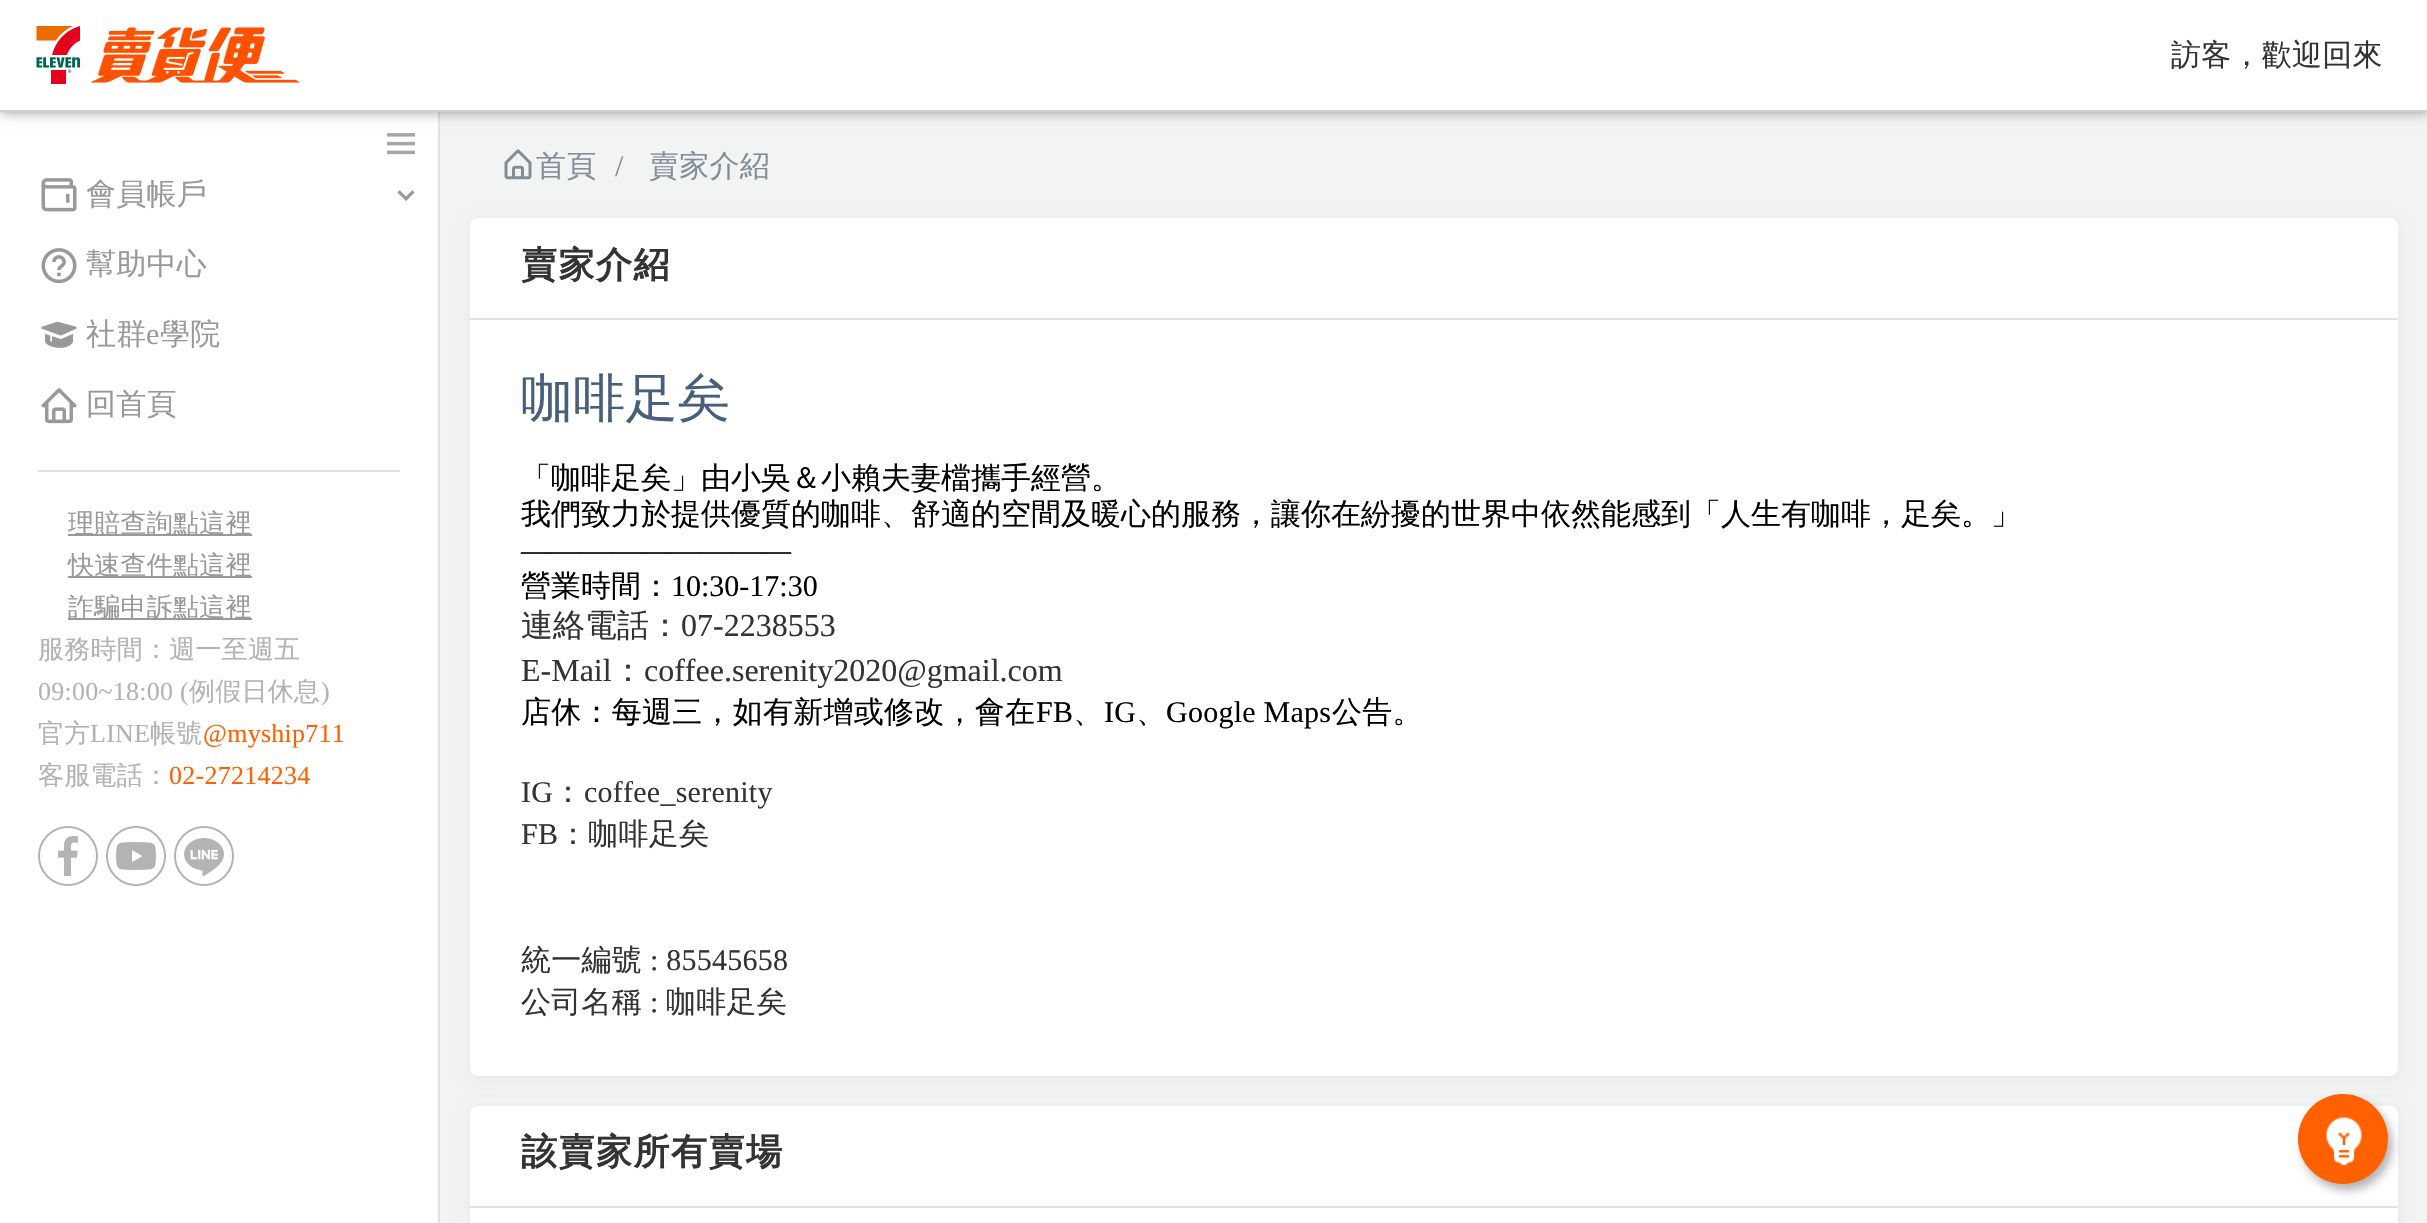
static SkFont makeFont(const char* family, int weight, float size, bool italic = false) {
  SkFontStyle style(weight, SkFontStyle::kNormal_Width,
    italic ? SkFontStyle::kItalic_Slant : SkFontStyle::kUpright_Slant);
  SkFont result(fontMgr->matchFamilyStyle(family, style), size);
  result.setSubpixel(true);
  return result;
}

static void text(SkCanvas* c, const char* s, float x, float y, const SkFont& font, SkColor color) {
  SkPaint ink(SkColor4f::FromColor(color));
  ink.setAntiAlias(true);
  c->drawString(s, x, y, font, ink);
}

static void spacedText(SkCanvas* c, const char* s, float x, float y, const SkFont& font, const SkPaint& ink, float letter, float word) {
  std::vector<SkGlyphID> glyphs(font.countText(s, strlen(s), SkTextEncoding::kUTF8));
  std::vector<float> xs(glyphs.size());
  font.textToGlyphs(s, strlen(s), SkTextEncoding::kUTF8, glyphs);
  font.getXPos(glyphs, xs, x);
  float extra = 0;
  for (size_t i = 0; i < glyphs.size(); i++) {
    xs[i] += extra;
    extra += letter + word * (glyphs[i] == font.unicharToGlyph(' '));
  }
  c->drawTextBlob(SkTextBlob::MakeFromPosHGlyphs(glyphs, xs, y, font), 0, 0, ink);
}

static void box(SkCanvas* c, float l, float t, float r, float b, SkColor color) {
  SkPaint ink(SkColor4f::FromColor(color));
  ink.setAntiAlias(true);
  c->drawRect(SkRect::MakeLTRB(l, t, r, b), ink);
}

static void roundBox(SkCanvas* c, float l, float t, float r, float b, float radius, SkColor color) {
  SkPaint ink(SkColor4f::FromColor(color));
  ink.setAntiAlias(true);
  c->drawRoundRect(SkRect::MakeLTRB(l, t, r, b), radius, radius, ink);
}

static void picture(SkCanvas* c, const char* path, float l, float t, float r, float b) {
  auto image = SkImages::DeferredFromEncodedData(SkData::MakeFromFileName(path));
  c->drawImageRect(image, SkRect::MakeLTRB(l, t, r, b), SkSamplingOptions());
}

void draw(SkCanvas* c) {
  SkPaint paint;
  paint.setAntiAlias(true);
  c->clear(0xfff2f4f4);
  box(c, 0, 112, 438, 1223, 0xffffffff);
  box(c, 438, 112, 440, 1223, 0xffdfe3e7);
  paint.setColor(0x66000000);
  paint.setMaskFilter(SkMaskFilter::MakeBlur(kNormal_SkBlurStyle, 6));
  c->drawRect(SkRect::MakeLTRB(0, 0, 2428, 112), paint);
  paint.setMaskFilter(nullptr);
  box(c, 0, 0, 2427, 110, 0xffffffff);
  box(c, 0, 110, 2427, 112, 0xffccd1d4);
  picture(c, "img_01.png", 36, 26, 300, 84);
  SkFont face1 = makeFont("WenQuanYi Zen Hei", 500, 30);
  paint.setColor(0xff333333);
  spacedText(c, "訪客，歡迎回來", 2171, 65, face1, paint, 0.25f, 0);
  picture(c, "img_02.png", 387, 133, 415, 155);
  picture(c, "img_03.png", 41, 178, 77, 212);
  paint.setColor(0xff999999);
  spacedText(c, "會員帳戶", 86, 204, face1, paint, 0.25f, 0);
  c->drawPath(SkPathBuilder().moveTo(412.5f, 190).lineTo(406, 196.5f).lineTo(399.5f, 190).lineTo(397.5f, 192.5f).lineTo(406, 201).lineTo(414.5f, 192.5f).close().detach(), paint);
  picture(c, "img_04.png", 41, 248, 77, 284);
  spacedText(c, "幫助中心", 86, 274, face1, paint, 0.25f, 0);
  picture(c, "img_05.png", 41, 321, 77, 348);
  spacedText(c, "社群", 86, 344, face1, paint, 0.25f, 0);
  SkFont face2 = makeFont("Liberation Serif", 400, 30);
  spacedText(c, "e", 146, 344, face2, paint, 0.25f, 0);
  spacedText(c, "學院", 160, 344, face1, paint, 0.25f, 0);
  picture(c, "img_06.png", 41, 388, 77, 424);
  spacedText(c, "回首頁", 86, 414, face1, paint, 0.25f, 0);
  box(c, 38, 470, 400, 472, 0xffdfe3e7);
  box(c, 68, 534, 252, 536, 0xff999999);
  SkFont face3 = makeFont("WenQuanYi Zen Hei", 500, 26);
  spacedText(c, "理賠查詢點這裡", 68, 532, face3, paint, 0.25f, 0);
  box(c, 68, 576, 252, 578, 0xff999999);
  spacedText(c, "快速查件點這裡", 68, 574, face3, paint, 0.25f, 0);
  box(c, 68, 618, 252, 620, 0xff999999);
  spacedText(c, "詐騙申訴點這裡", 68, 616, face3, paint, 0.25f, 0);
  paint.setColor(0xffb3b3b3);
  spacedText(c, "服務時間：週一至週五", 38, 658, face3, paint, 0.25f, 0);
  SkFont face4 = makeFont("Liberation Serif", 400, 26);
  spacedText(c, "09:00~18:00 (", 38, 700, face4, paint, 0.25f, 0);
  spacedText(c, "例假日休息", 189, 700, face3, paint, 0.25f, 0);
  spacedText(c, ")", 321, 700, face4, paint, 0.25f, 0);
  spacedText(c, "官方", 38, 742, face3, paint, 0.25f, 0);
  spacedText(c, "LINE", 90, 742, face4, paint, 0.25f, 0);
  spacedText(c, "帳號", 150, 742, face3, paint, 0.25f, 0);
  paint.setColor(0xffff6000);
  spacedText(c, "@myship711", 203, 742, face4, paint, 0.25f, 0);
  paint.setColor(0xffb3b3b3);
  spacedText(c, "客服電話：", 38, 784, face3, paint, 0.25f, 0);
  paint.setColor(0xffff6000);
  spacedText(c, "02-27214234", 169, 784, face4, paint, 0.25f, 0);
  picture(c, "img_07.png", 38, 826, 98, 886);
  picture(c, "img_08.png", 106, 826, 166, 886);
  picture(c, "img_09.png", 174, 826, 234, 886);
  picture(c, "img_10.png", 504, 149, 532, 180);
  paint.setColor(0xff828d99);
  spacedText(c, "首頁", 536, 176, face1, paint, 0.25f, 0);
  spacedText(c, "/", 615, 176, face2, paint, 0.25f, 0);
  spacedText(c, "賣家介紹", 649, 176, face1, paint, 0.25f, 0);
  paint.setColor(0xffe6e6e6);
  paint.setMaskFilter(SkMaskFilter::MakeBlur(kNormal_SkBlurStyle, 8));
  c->drawRoundRect(SkRect::MakeLTRB(470, 222, 2398, 1080), 8, 8, paint);
  paint.setMaskFilter(nullptr);
  roundBox(c, 470, 218, 2398, 1076, 8, 0xffffffff);
  box(c, 470, 318, 2398, 320, 0xffdfe3e7);
  SkFont face5 = makeFont("WenQuanYi Zen Hei", 700, 36);
  paint.setColor(0xff333333);
  spacedText(c, "賣家介紹", 521, 277, face5, paint, 1.5f, 0);
  SkFont face6 = makeFont("WenQuanYi Zen Hei", 500, 52);
  paint.setColor(0xff475f7b);
  spacedText(c, "咖啡足矣", 521, 416, face6, paint, 0.25f, 0);
  text(c, "「咖啡足矣」由小吳＆小賴夫妻檔攜手經營。", 521, 488, face1, 0xff000000);
  text(c, "我們致力於提供優質的咖啡、舒適的空間及暖心的服務，讓你在紛擾的世界中依然能感到「人生有咖啡，足矣。」", 521, 524, face1, 0xff000000);
  text(c, "—————————", 521, 560, face2, 0xff000000);
  text(c, "營業時間：", 521, 596, face1, 0xff000000);
  text(c, "10:30-17:30", 671, 596, face2, 0xff000000);
  SkFont face7 = makeFont("WenQuanYi Zen Hei", 500, 32);
  text(c, "連絡電話：", 521, 636, face7, 0xff333333);
  SkFont face8 = makeFont("Liberation Serif", 400, 32);
  text(c, "07-2238553", 681, 636, face8, 0xff333333);
  text(c, "E-Mail", 521, 681, face8, 0xff333333);
  text(c, "：", 612, 681, face7, 0xff333333);
  text(c, "coffee.serenity2020@gmail.com", 644, 681, face8, 0xff333333);
  paint.setColor(0xff000000);
  spacedText(c, "店休：每週三，如有新增或修改，會在", 521, 722, face1, paint, 0.25f, 0);
  spacedText(c, "FB", 1036, 722, face2, paint, 0.25f, 0);
  spacedText(c, "、", 1073, 722, face1, paint, 0.25f, 0);
  spacedText(c, "IG", 1104, 722, face2, paint, 0.25f, 0);
  spacedText(c, "、", 1136, 722, face1, paint, 0.25f, 0);
  spacedText(c, "Google Maps", 1166, 722, face2, paint, 0.25f, 0);
  spacedText(c, "公告。", 1332, 722, face1, paint, 0.25f, 0);
  paint.setColor(0xff333333);
  spacedText(c, "IG", 521, 802, face2, paint, 0.25f, 0);
  spacedText(c, "：", 553, 802, face1, paint, 0.25f, 0);
  spacedText(c, "coffee_serenity", 584, 802, face2, paint, 0.25f, 0);
  spacedText(c, "FB", 521, 844, face2, paint, 0.25f, 0);
  spacedText(c, "：咖啡足矣", 558, 844, face1, paint, 0.25f, 0);
  spacedText(c, "統一編號", 521, 970, face1, paint, 0.25f, 0);
  spacedText(c, ": 85545658", 650, 970, face2, paint, 0.25f, 0);
  spacedText(c, "公司名稱", 521, 1012, face1, paint, 0.25f, 0);
  spacedText(c, ":", 650, 1012, face2, paint, 0.25f, 0);
  spacedText(c, "咖啡足矣", 666, 1012, face1, paint, 0.25f, 0);
  paint.setColor(0xffe6e6e6);
  paint.setMaskFilter(SkMaskFilter::MakeBlur(kNormal_SkBlurStyle, 8));
  c->drawRoundRect(SkRect::MakeLTRB(470, 1110, 2398, 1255), 8, 8, paint);
  paint.setMaskFilter(nullptr);
  roundBox(c, 470, 1106, 2398, 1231, 8, 0xffffffff);
  box(c, 470, 1206, 2398, 1208, 0xffdfe3e7);
  paint.setColor(0xff333333);
  spacedText(c, "該賣家所有賣場", 521, 1164, face5, paint, 1.5f, 0);
  paint.setColor(0x4d000000);
  paint.setMaskFilter(SkMaskFilter::MakeBlur(kNormal_SkBlurStyle, 5));
  c->drawRoundRect(SkRect::MakeLTRB(2302, 1100, 2392, 1190), 45, 45, paint);
  paint.setMaskFilter(nullptr);
  paint.setColor(0xffff6000);
  c->drawCircle(2343, 1139, 45, paint);
  picture(c, "img_11.png", 2326, 1117, 2362, 1166);
}
